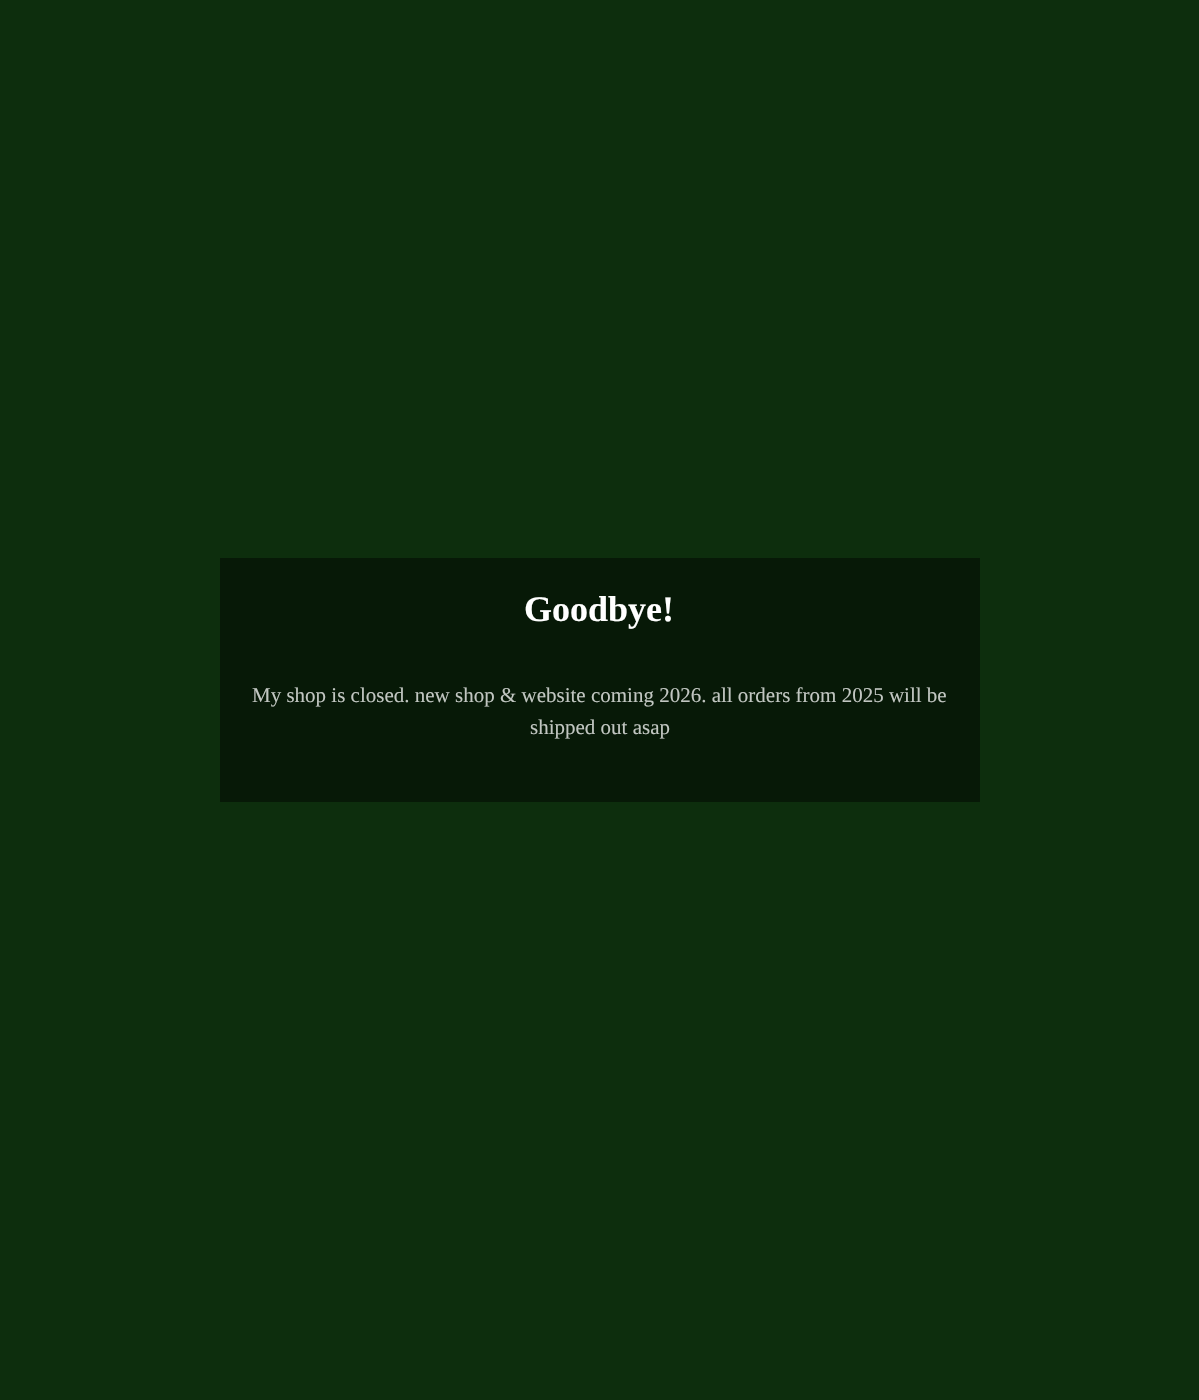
static SkFont makeFont(const char* family, int weight, float size, bool italic = false) {
  SkFontStyle style(weight, SkFontStyle::kNormal_Width,
    italic ? SkFontStyle::kItalic_Slant : SkFontStyle::kUpright_Slant);
  SkFont result(fontMgr->matchFamilyStyle(family, style), size);
  result.setSubpixel(true);
  return result;
}

static void text(SkCanvas* c, const char* s, float x, float y, const SkFont& font, SkColor color) {
  SkPaint ink(SkColor4f::FromColor(color));
  ink.setAntiAlias(true);
  c->drawString(s, x, y, font, ink);
}

static void box(SkCanvas* c, float l, float t, float r, float b, SkColor color) {
  SkPaint ink(SkColor4f::FromColor(color));
  ink.setAntiAlias(true);
  c->drawRect(SkRect::MakeLTRB(l, t, r, b), ink);
}

void draw(SkCanvas* c) {
  SkPaint paint;
  paint.setAntiAlias(true);
  c->clear(0xff0d2e0d);
  box(c, 220, 558, 980, 802, 0xff071907);
  SkFont face1 = makeFont("Liberation Serif", 700, 36);
  text(c, "Goodbye!", 524, 621, face1, 0xffffffff);
  SkFont face2 = makeFont("Liberation Serif", 400, 21);
  text(c, "My shop is closed. new shop & website coming 2026. all orders from 2025 will be", 252, 702, face2, 0xffc1c6c1);
  text(c, "shipped out asap", 530, 734, face2, 0xffc1c6c1);
}
